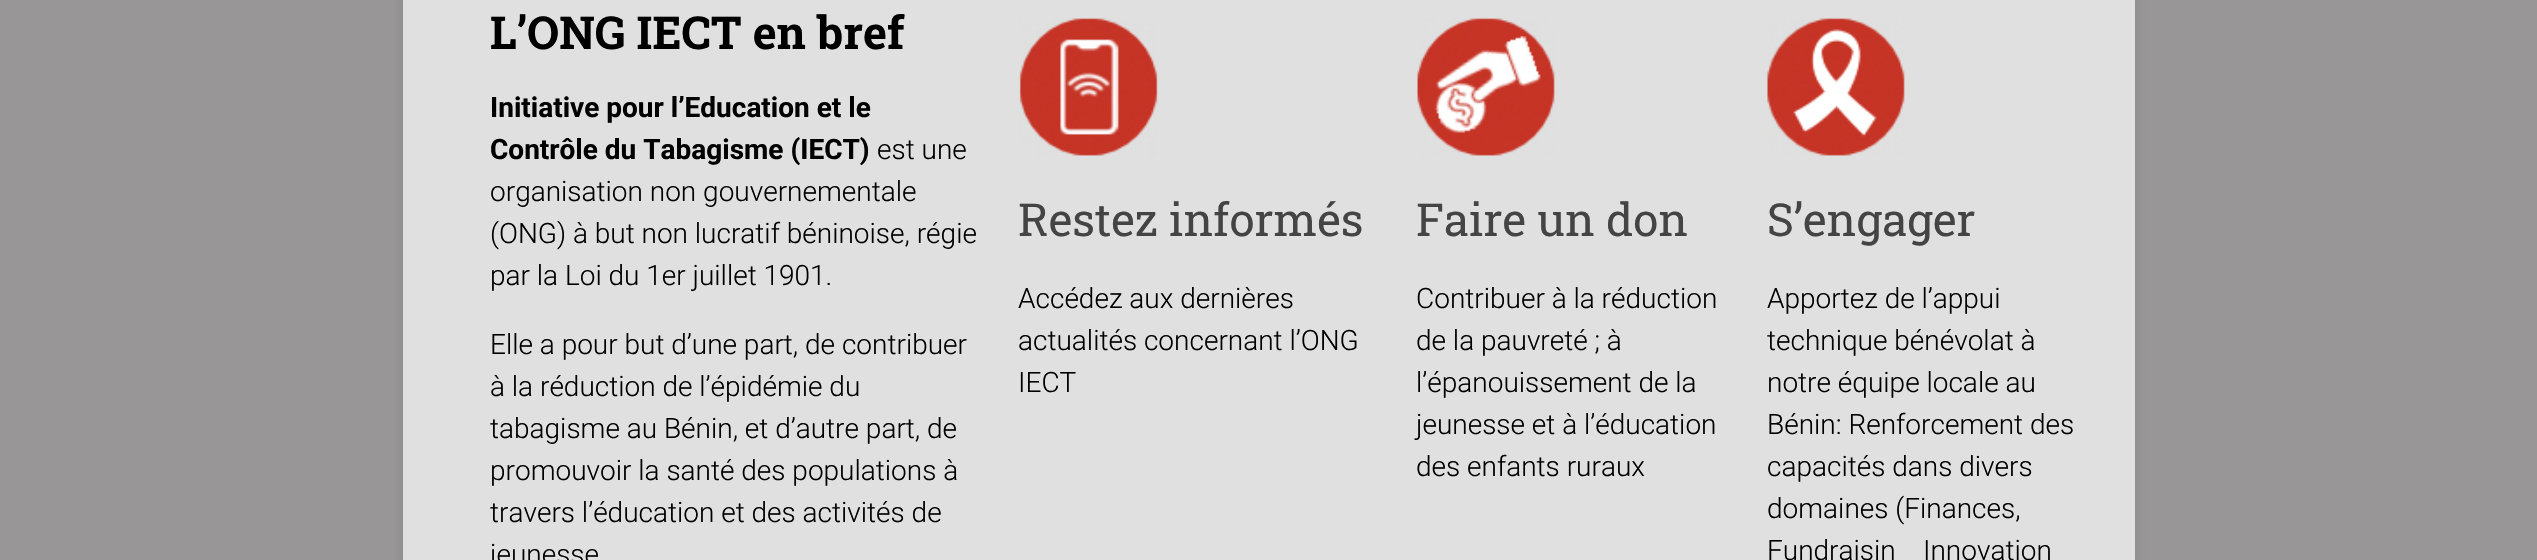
static SkFont makeFont(const char* family, int weight, float size, bool italic = false) {
  SkFontStyle style(weight, SkFontStyle::kNormal_Width,
    italic ? SkFontStyle::kItalic_Slant : SkFontStyle::kUpright_Slant);
  SkFont result(fontMgr->matchFamilyStyle(family, style), size);
  result.setSubpixel(true);
  return result;
}

static void text(SkCanvas* c, const char* s, float x, float y, const SkFont& font, SkColor color) {
  SkPaint ink(SkColor4f::FromColor(color));
  ink.setAntiAlias(true);
  c->drawString(s, x, y, font, ink);
}

static void box(SkCanvas* c, float l, float t, float r, float b, SkColor color) {
  SkPaint ink(SkColor4f::FromColor(color));
  ink.setAntiAlias(true);
  c->drawRect(SkRect::MakeLTRB(l, t, r, b), ink);
}

static void picture(SkCanvas* c, const char* path, float l, float t, float r, float b) {
  auto image = SkImages::DeferredFromEncodedData(SkData::MakeFromFileName(path));
  c->drawImageRect(image, SkRect::MakeLTRB(l, t, r, b), SkSamplingOptions());
}

void draw(SkCanvas* c) {
  SkPaint paint;
  paint.setAntiAlias(true);
  c->clear(0xff989696);
  paint.setColor(0x4d646464);
  paint.setMaskFilter(SkMaskFilter::MakeBlur(kNormal_SkBlurStyle, 5));
  c->drawRect(SkRect::MakeLTRB(403, -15, 2135, 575), paint);
  paint.setMaskFilter(nullptr);
  box(c, 403, 0, 2135, 560, 0xffe0e0e0);
  SkFont face1 = makeFont("Roboto Slab", 700, 45.5f);
  text(c, "L’ONG IECT en bref", 490, 49, face1, 0xff000000);
  SkFont face2 = makeFont("Roboto", 700, 28);
  text(c, "Initiative pour l’Education et le", 490, 117, face2, 0xff000000);
  text(c, "Contrôle du Tabagisme (IECT)", 490, 159, face2, 0xff000000);
  SkFont face3 = makeFont("Roboto", 300, 28);
  text(c, "est une", 877, 159, face3, 0xff000000);
  text(c, "organisation non gouvernementale", 490, 201, face3, 0xff000000);
  text(c, "(ONG) à but non lucratif béninoise, régie", 490, 243, face3, 0xff000000);
  text(c, "par la Loi du 1er juillet 1901.", 490, 285, face3, 0xff000000);
  text(c, "Elle a pour but d’une part, de contribuer", 490, 354, face3, 0xff000000);
  text(c, "à la réduction de l’épidémie du", 490, 396, face3, 0xff000000);
  text(c, "tabagisme au Bénin, et d’autre part, de", 490, 438, face3, 0xff000000);
  text(c, "promouvoir la santé des populations à", 490, 480, face3, 0xff000000);
  text(c, "travers l’éducation et des activités de", 490, 522, face3, 0xff000000);
  text(c, "jeunesse", 490, 564, face3, 0xff000000);
  picture(c, "img_01.png", 1019, 18, 1158, 156);
  SkFont face4 = makeFont("Roboto Slab", 400, 45.5f);
  text(c, "Restez informés", 1018, 236, face4, 0xff444444);
  text(c, "Accédez aux dernières", 1018, 308, face3, 0xff000000);
  text(c, "actualités concernant l’ONG", 1018, 350, face3, 0xff000000);
  text(c, "IECT", 1018, 392, face3, 0xff000000);
  picture(c, "img_02.png", 1417, 18, 1555, 156);
  text(c, "Faire un don", 1416, 236, face4, 0xff444444);
  text(c, "Contribuer à la réduction", 1416, 308, face3, 0xff000000);
  text(c, "de la pauvreté ; à", 1416, 350, face3, 0xff000000);
  text(c, "l’épanouissement de la", 1416, 392, face3, 0xff000000);
  text(c, "jeunesse et à l’éducation", 1416, 434, face3, 0xff000000);
  text(c, "des enfants ruraux", 1416, 476, face3, 0xff000000);
  picture(c, "img_03.png", 1767, 18, 1905, 156);
  text(c, "S’engager", 1767, 236, face4, 0xff444444);
  text(c, "Apportez de l’appui", 1767, 308, face3, 0xff000000);
  text(c, "technique bénévolat à", 1767, 350, face3, 0xff000000);
  text(c, "notre équipe locale au", 1767, 392, face3, 0xff000000);
  text(c, "Bénin: Renforcement des", 1767, 434, face3, 0xff000000);
  text(c, "capacités dans divers", 1767, 476, face3, 0xff000000);
  text(c, "domaines (Finances,", 1767, 518, face3, 0xff000000);
  text(c, "Fundraisin", 1767, 560, face3, 0xff000000);
  text(c, "Innovation", 1923, 560, face3, 0xff000000);
}
